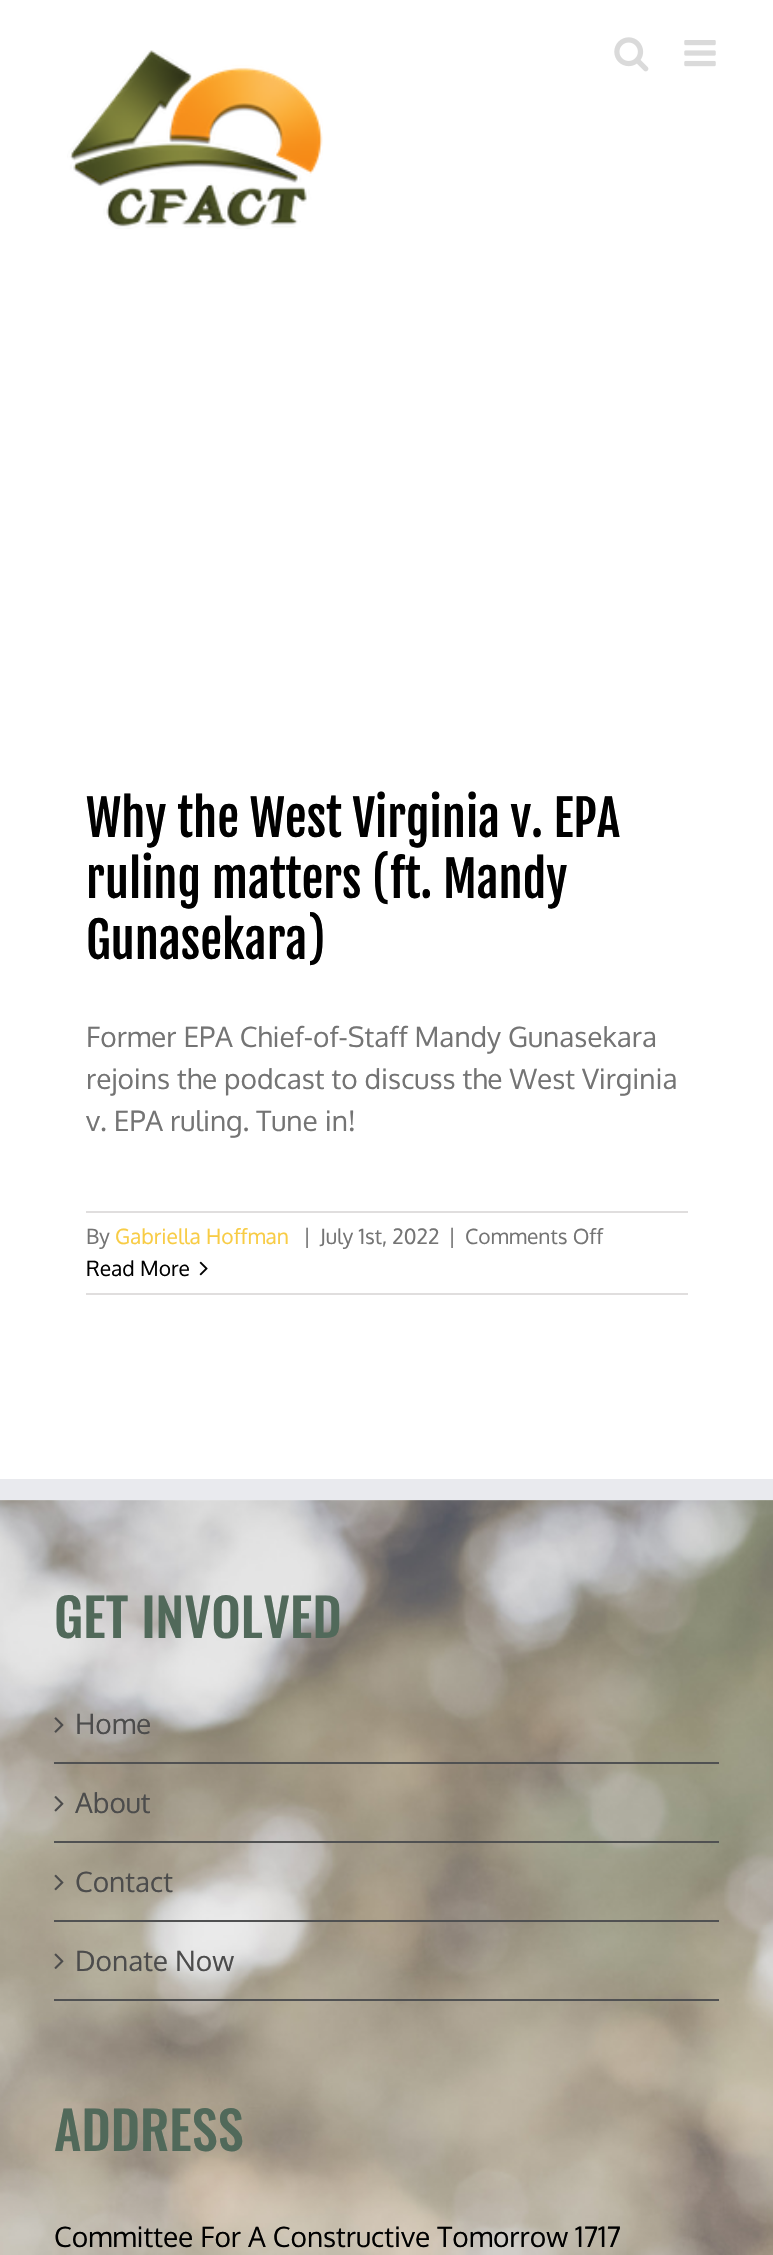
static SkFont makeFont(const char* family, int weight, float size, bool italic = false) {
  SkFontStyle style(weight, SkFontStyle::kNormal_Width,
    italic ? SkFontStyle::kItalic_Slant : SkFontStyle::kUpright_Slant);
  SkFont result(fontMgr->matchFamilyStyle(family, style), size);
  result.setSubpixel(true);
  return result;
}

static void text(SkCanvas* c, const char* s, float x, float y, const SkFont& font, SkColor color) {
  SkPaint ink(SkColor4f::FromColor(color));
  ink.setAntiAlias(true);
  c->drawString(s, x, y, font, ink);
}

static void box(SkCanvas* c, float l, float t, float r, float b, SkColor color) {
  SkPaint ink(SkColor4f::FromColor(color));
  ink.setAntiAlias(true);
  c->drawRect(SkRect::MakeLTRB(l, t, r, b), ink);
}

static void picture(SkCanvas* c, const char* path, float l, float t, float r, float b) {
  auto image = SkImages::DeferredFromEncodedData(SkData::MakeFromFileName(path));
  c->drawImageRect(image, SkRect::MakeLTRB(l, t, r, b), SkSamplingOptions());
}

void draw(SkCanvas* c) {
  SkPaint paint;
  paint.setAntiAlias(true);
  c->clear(0xffffffff);
  picture(c, "img_01.png", 67, 50, 323, 229);
  picture(c, "img_02.png", 614, 37, 649, 72);
  picture(c, "img_03.png", 684, 40, 716, 67);
  SkFont face1 = makeFont("Fjalla One", 400, 49);
  text(c, "Why the West Virginia v. EPA", 86, 837, face1, 0xff000000);
  text(c, "ruling matters (ft. Mandy", 86, 898, face1, 0xff000000);
  text(c, "Gunasekara)", 86, 959, face1, 0xff000000);
  SkFont face2 = makeFont("Oxygen", 400, 28);
  text(c, "Former EPA Chief-of-Staff Mandy Gunasekara", 86, 1047, face2, 0xff747474);
  text(c, "rejoins the podcast to discuss the West Virginia", 86, 1089, face2, 0xff747474);
  text(c, "v. EPA ruling. Tune in!", 86, 1131, face2, 0xff747474);
  box(c, 86, 1211, 688, 1213, 0xffe0dede);
  box(c, 86, 1293, 688, 1295, 0xffe0dede);
  SkFont face3 = makeFont("Oxygen", 400, 21);
  text(c, "By", 86, 1244, face3, 0xff747474);
  text(c, "Gabriella Hoffman", 115, 1244, face3, 0xfff8cc45);
  text(c, "|", 303, 1244, face3, 0xff747474);
  text(c, "July 1st, 2022", 320, 1244, face3, 0xff747474);
  text(c, "|", 448, 1244, face3, 0xff747474);
  text(c, "Comments Off", 465, 1244, face3, 0xff747474);
  text(c, "Read More", 86, 1276, face3, 0xff000000);
  picture(c, "img_04.png", 199, 1261, 208, 1276);
  picture(c, "img_05.png", 0, 1500, 773, 2255);
  box(c, 0, 1479, 773, 1500, 0xffe9eaee);
  SkFont face4 = makeFont("Oswald", 500, 52.5f);
  text(c, "GET INVOLVED", 54, 1638, face4, 0xff51695a);
  box(c, 54, 1762, 719, 1764, 0xff505152);
  picture(c, "img_06.png", 54, 1717, 64, 1733);
  text(c, "Home", 75, 1734, face2, 0xff4c4c4c);
  box(c, 54, 1841, 719, 1843, 0xff505152);
  picture(c, "img_07.png", 54, 1796, 64, 1812);
  text(c, "About", 75, 1813, face2, 0xff4c4c4c);
  box(c, 54, 1920, 719, 1922, 0xff505152);
  picture(c, "img_08.png", 54, 1874, 64, 1891);
  text(c, "Contact", 75, 1892, face2, 0xff4c4c4c);
  box(c, 54, 1999, 719, 2001, 0xff505152);
  picture(c, "img_09.png", 54, 1953, 64, 1969);
  text(c, "Donate Now", 75, 1971, face2, 0xff4c4c4c);
  text(c, "ADDRESS", 54, 2151, face4, 0xff51695a);
  text(c, "Committee For A Constructive Tomorrow 1717", 54, 2247, face2, 0xff000000);
}
